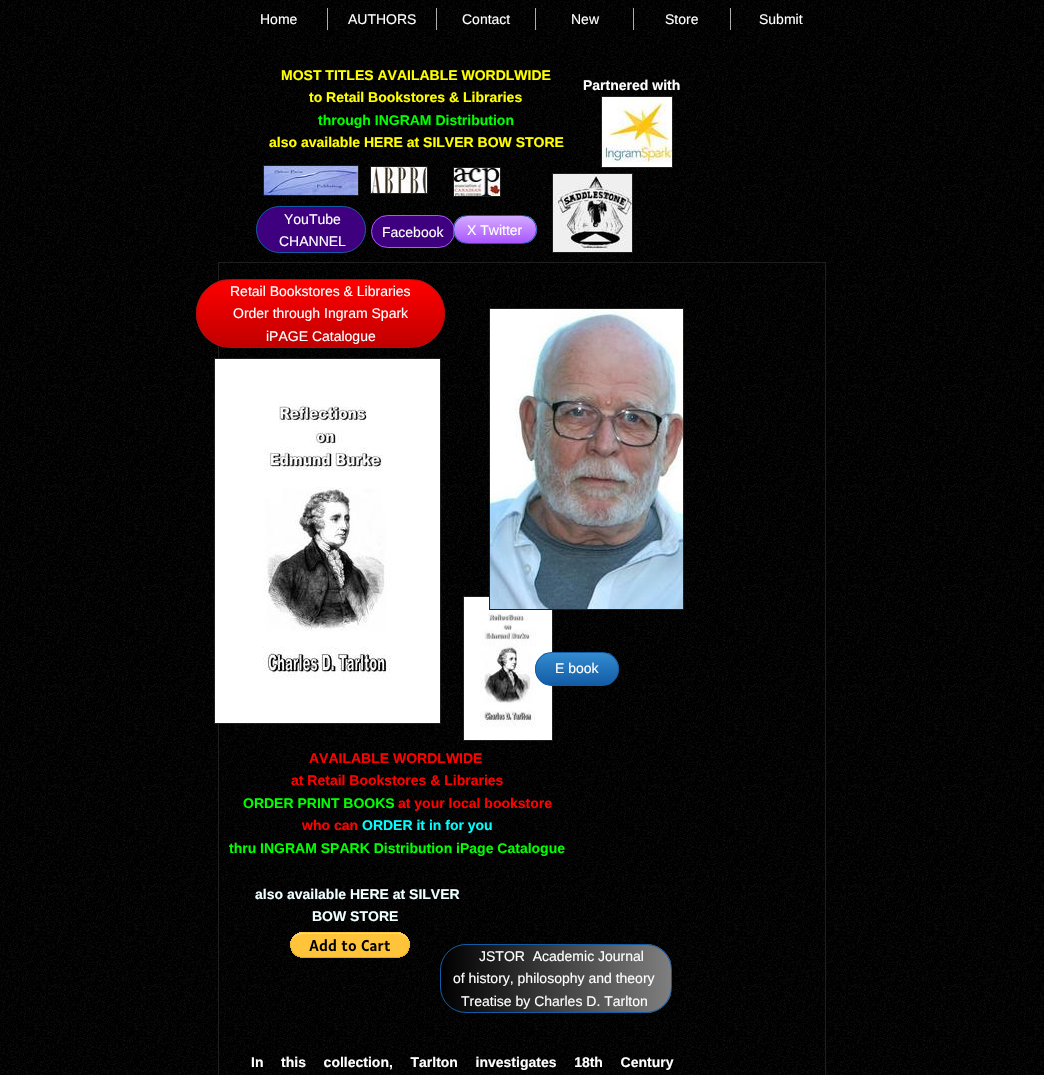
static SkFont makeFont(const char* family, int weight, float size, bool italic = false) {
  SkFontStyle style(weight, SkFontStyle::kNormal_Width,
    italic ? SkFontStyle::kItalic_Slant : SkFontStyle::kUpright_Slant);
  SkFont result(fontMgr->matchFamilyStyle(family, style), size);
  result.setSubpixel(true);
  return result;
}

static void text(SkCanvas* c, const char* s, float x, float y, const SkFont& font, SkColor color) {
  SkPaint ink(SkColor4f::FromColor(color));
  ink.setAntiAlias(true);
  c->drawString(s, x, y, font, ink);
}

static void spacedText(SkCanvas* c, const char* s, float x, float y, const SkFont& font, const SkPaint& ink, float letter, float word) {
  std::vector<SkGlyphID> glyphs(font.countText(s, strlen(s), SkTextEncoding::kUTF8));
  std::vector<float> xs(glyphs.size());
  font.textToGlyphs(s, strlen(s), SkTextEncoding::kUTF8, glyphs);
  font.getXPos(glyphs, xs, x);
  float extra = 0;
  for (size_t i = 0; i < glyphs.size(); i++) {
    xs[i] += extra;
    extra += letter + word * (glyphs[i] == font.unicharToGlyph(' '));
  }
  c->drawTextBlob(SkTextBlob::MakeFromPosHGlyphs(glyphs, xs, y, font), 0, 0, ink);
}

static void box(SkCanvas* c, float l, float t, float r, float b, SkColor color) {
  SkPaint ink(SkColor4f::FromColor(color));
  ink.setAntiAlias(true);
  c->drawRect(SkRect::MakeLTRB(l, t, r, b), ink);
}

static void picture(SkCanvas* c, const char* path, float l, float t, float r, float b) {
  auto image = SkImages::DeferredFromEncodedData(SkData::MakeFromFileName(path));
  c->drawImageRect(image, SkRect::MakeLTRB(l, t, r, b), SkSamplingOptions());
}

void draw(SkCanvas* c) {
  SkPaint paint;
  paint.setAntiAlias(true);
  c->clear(0xff000000);
  picture(c, "img_01.png", 0, 0, 1044, 1075);
  paint.setStyle(SkPaint::kStroke_Style);
  paint.setStrokeWidth(1);
  paint.setColor(0xff1f1f1f);
  c->drawRect(SkRect::MakeLTRB(218.5f, 262.5f, 825.5f, 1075.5f), paint);
  box(c, 327, 8, 328, 30, 0xffaeaeae);
  SkFont face1 = makeFont("Liberation Sans", 400, 14);
  text(c, "Home", 260, 24, face1, 0xffffffff);
  box(c, 436, 8, 437, 30, 0xffaeaeae);
  text(c, "AUTHORS", 348, 24, face1, 0xffffffff);
  box(c, 535, 8, 536, 30, 0xffaeaeae);
  text(c, "Contact", 462, 24, face1, 0xffffffff);
  box(c, 633, 8, 634, 30, 0xffaeaeae);
  text(c, "New", 571, 24, face1, 0xffffffff);
  box(c, 730, 8, 731, 30, 0xffaeaeae);
  text(c, "Store", 665, 24, face1, 0xffffffff);
  text(c, "Submit", 759, 24, face1, 0xffffffff);
  SkFont face2 = makeFont("Liberation Sans", 700, 14);
  text(c, "MOST TITLES AVAILABLE WORDLWIDE", 281, 80, face2, 0xffffff00);
  text(c, "to Retail Bookstores & Libraries", 309, 102, face2, 0xffffff00);
  text(c, "through INGRAM Distribution", 318, 125, face2, 0xff00ff00);
  text(c, "also available HERE at SILVER BOW STORE", 269, 147, face2, 0xffffff00);
  text(c, "Partnered with", 583, 90, face2, 0xffffffff);
  c->drawRect(SkRect::MakeLTRB(601.5f, 96.5f, 672.5f, 167.5f), paint);
  picture(c, "img_02.png", 602, 97, 672, 167);
  c->drawRect(SkRect::MakeLTRB(263.5f, 165.5f, 358.5f, 195.5f), paint);
  picture(c, "img_03.png", 264, 166, 358, 195);
  c->drawRect(SkRect::MakeLTRB(370.5f, 166.5f, 427.5f, 193.5f), paint);
  picture(c, "img_04.png", 371, 167, 427, 193);
  c->drawRect(SkRect::MakeLTRB(453.5f, 167.5f, 500.5f, 196.5f), paint);
  picture(c, "img_05.png", 454, 168, 500, 196);
  c->drawRect(SkRect::MakeLTRB(552.5f, 173.5f, 632.5f, 252.5f), paint);
  picture(c, "img_06.png", 553, 174, 632, 252);
  paint.setStyle(SkPaint::kFill_Style);
  paint.setColor(0xff3f007f);
  c->drawRoundRect(SkRect::MakeLTRB(256.5f, 206.5f, 365.5f, 252.5f), 23, 23, paint);
  paint.setStyle(SkPaint::kStroke_Style);
  paint.setColor(0xff125ca6);
  c->drawRoundRect(SkRect::MakeLTRB(256.5f, 206.5f, 365.5f, 252.5f), 23, 23, paint);
  text(c, "YouTube", 284, 224, face1, 0xffffffff);
  text(c, "CHANNEL", 279, 246, face1, 0xffffffff);
  paint.setStyle(SkPaint::kFill_Style);
  paint.setColor(0xff3f007f);
  c->drawRoundRect(SkRect::MakeLTRB(371.5f, 215.5f, 454.5f, 247.5f), 16, 16, paint);
  paint.setStyle(SkPaint::kStroke_Style);
  paint.setColor(0xffaa56ff);
  c->drawRoundRect(SkRect::MakeLTRB(371.5f, 215.5f, 454.5f, 247.5f), 16, 16, paint);
  text(c, "Facebook", 382, 237, face1, 0xffffffff);
  c->save();
  c->clipPath(SkPathBuilder().moveTo(467.5f, 215).lineTo(522.5f, 215).cubicTo(530.5f, 215, 537, 221.5f, 537, 229.5f).cubicTo(537, 237.5f, 530.5f, 244, 522.5f, 244).lineTo(467.5f, 244).cubicTo(459.5f, 244, 453, 237.5f, 453, 229.5f).cubicTo(453, 221.5f, 459.5f, 215, 467.5f, 215).close().detach(), true);
  paint.setStyle(SkPaint::kFill_Style);
  {
    const SkColor colors[] = {0xffd4aaff, 0xffaa56ff};
    const float stops[] = {0, 1};
    const SkPoint ends[] = {{495, 216}, {495, 243}};
    paint.setShader(SkGradientShader::MakeLinear(ends, colors, stops, 2, SkTileMode::kClamp));
    paint.setAlpha(255);
  }
  c->drawRect(SkRect::MakeLTRB(453, 216, 537, 243), paint);
  c->restore();
  paint.setStyle(SkPaint::kStroke_Style);
  paint.setShader(nullptr);
  paint.setColor(0xff125ca6);
  c->drawRoundRect(SkRect::MakeLTRB(453.5f, 215.5f, 536.5f, 243.5f), 14, 14, paint);
  text(c, "X Twitter", 467, 235, face1, 0xffffffff);
  c->save();
  c->clipPath(SkPathBuilder().moveTo(230.5f, 279).lineTo(410.5f, 279).cubicTo(429.5f, 279, 445, 294.5f, 445, 313.5f).cubicTo(445, 332.5f, 429.5f, 348, 410.5f, 348).lineTo(230.5f, 348).cubicTo(211.5f, 348, 196, 332.5f, 196, 313.5f).cubicTo(196, 294.5f, 211.5f, 279, 230.5f, 279).close().detach(), true);
  paint.setStyle(SkPaint::kFill_Style);
  {
    const SkColor colors[] = {0xffff0000, 0xffc00000};
    const float stops[] = {0, 1};
    const SkPoint ends[] = {{321, 280}, {321, 347}};
    paint.setShader(SkGradientShader::MakeLinear(ends, colors, stops, 2, SkTileMode::kClamp));
    paint.setAlpha(255);
  }
  c->drawRect(SkRect::MakeLTRB(196, 280, 445, 347), paint);
  c->restore();
  paint.setStyle(SkPaint::kStroke_Style);
  paint.setShader(nullptr);
  paint.setColor(0xffa61212);
  c->drawRoundRect(SkRect::MakeLTRB(196.5f, 279.5f, 444.5f, 347.5f), 34, 34, paint);
  text(c, "Retail Bookstores & Libraries", 230, 296, face1, 0xffffffff);
  text(c, "Order through Ingram Spark", 233, 318, face1, 0xffffffff);
  text(c, "iPAGE Catalogue", 266, 341, face1, 0xffffffff);
  paint.setColor(0xff1f1f1f);
  c->drawRect(SkRect::MakeLTRB(463.5f, 596.5f, 552.5f, 740.5f), paint);
  picture(c, "img_09.png", 464, 597, 552, 740);
  c->drawRect(SkRect::MakeLTRB(489.5f, 308.5f, 683.5f, 609.5f), paint);
  picture(c, "img_07.png", 490, 309, 683, 609);
  c->drawRect(SkRect::MakeLTRB(214.5f, 358.5f, 440.5f, 723.5f), paint);
  picture(c, "img_08.png", 215, 359, 440, 723);
  c->save();
  c->clipPath(SkPathBuilder().moveTo(552, 652).lineTo(602, 652).cubicTo(611.5f, 652, 619, 659.5f, 619, 669).cubicTo(619, 678.5f, 611.5f, 686, 602, 686).lineTo(552, 686).cubicTo(542.5f, 686, 535, 678.5f, 535, 669).cubicTo(535, 659.5f, 542.5f, 652, 552, 652).close().detach(), true);
  paint.setStyle(SkPaint::kFill_Style);
  {
    const SkColor colors[] = {0xff348bcf, 0xff125ca6};
    const float stops[] = {0, 1};
    const SkPoint ends[] = {{577, 653}, {577, 685}};
    paint.setShader(SkGradientShader::MakeLinear(ends, colors, stops, 2, SkTileMode::kClamp));
    paint.setAlpha(255);
  }
  c->drawRect(SkRect::MakeLTRB(535, 653, 619, 685), paint);
  c->restore();
  paint.setStyle(SkPaint::kStroke_Style);
  paint.setShader(nullptr);
  paint.setColor(0xff125ca6);
  c->drawRoundRect(SkRect::MakeLTRB(535.5f, 652.5f, 618.5f, 685.5f), 16.5f, 16.5f, paint);
  text(c, "E book", 555, 673, face1, 0xffffffff);
  text(c, "AVAILABLE WORDLWIDE", 309, 763, face2, 0xffff0000);
  text(c, "at Retail Bookstores & Libraries", 291, 785, face2, 0xffff0000);
  text(c, "ORDER PRINT BOOKS", 243, 808, face2, 0xff00ff00);
  text(c, "at your local bookstore", 398, 808, face2, 0xffff0000);
  text(c, "who can", 302, 830, face2, 0xffff0000);
  text(c, "ORDER it in for you", 362, 830, face2, 0xff00ffff);
  text(c, "thru INGRAM SPARK Distribution iPage Catalogue", 229, 853, face2, 0xff00ff00);
  text(c, "also available HERE at SILVER", 255, 899, face2, 0xfff0ffff);
  text(c, "BOW STORE", 312, 921, face2, 0xfff0ffff);
  picture(c, "img_10.png", 290, 932, 410, 958);
  c->save();
  c->clipPath(SkPathBuilder().moveTo(466, 944).lineTo(646, 944).cubicTo(660.5f, 944, 672, 955.5f, 672, 970).lineTo(672, 987).cubicTo(672, 1001.5f, 660.5f, 1013, 646, 1013).lineTo(466, 1013).cubicTo(451.5f, 1013, 440, 1001.5f, 440, 987).lineTo(440, 970).cubicTo(440, 955.5f, 451.5f, 944, 466, 944).close().detach(), true);
  paint.setStyle(SkPaint::kFill_Style);
  {
    const SkColor colors[] = {0xff000000, 0xff7f7f7f};
    const float stops[] = {0, 1};
    const SkPoint ends[] = {{441, 979}, {671, 979}};
    paint.setShader(SkGradientShader::MakeLinear(ends, colors, stops, 2, SkTileMode::kClamp));
    paint.setAlpha(255);
  }
  c->drawRect(SkRect::MakeLTRB(441, 944, 671, 1013), paint);
  c->restore();
  paint.setStyle(SkPaint::kStroke_Style);
  paint.setShader(nullptr);
  paint.setColor(0xff125ca6);
  c->drawRoundRect(SkRect::MakeLTRB(440.5f, 944.5f, 671.5f, 1012.5f), 25.5f, 25.5f, paint);
  text(c, "JSTOR  Academic Journal", 479, 961, face1, 0xffffffff);
  text(c, "of history, philosophy and theory", 453, 983, face1, 0xffffffff);
  text(c, "Treatise by Charles D. Tarlton", 461, 1006, face1, 0xffffffff);
  paint.setStyle(SkPaint::kFill_Style);
  paint.setColor(0xffffffff);
  spacedText(c, "In this collection, Tarlton investigates 18th Century", 251, 1067, face2, paint, 0, 13.75f);
}
